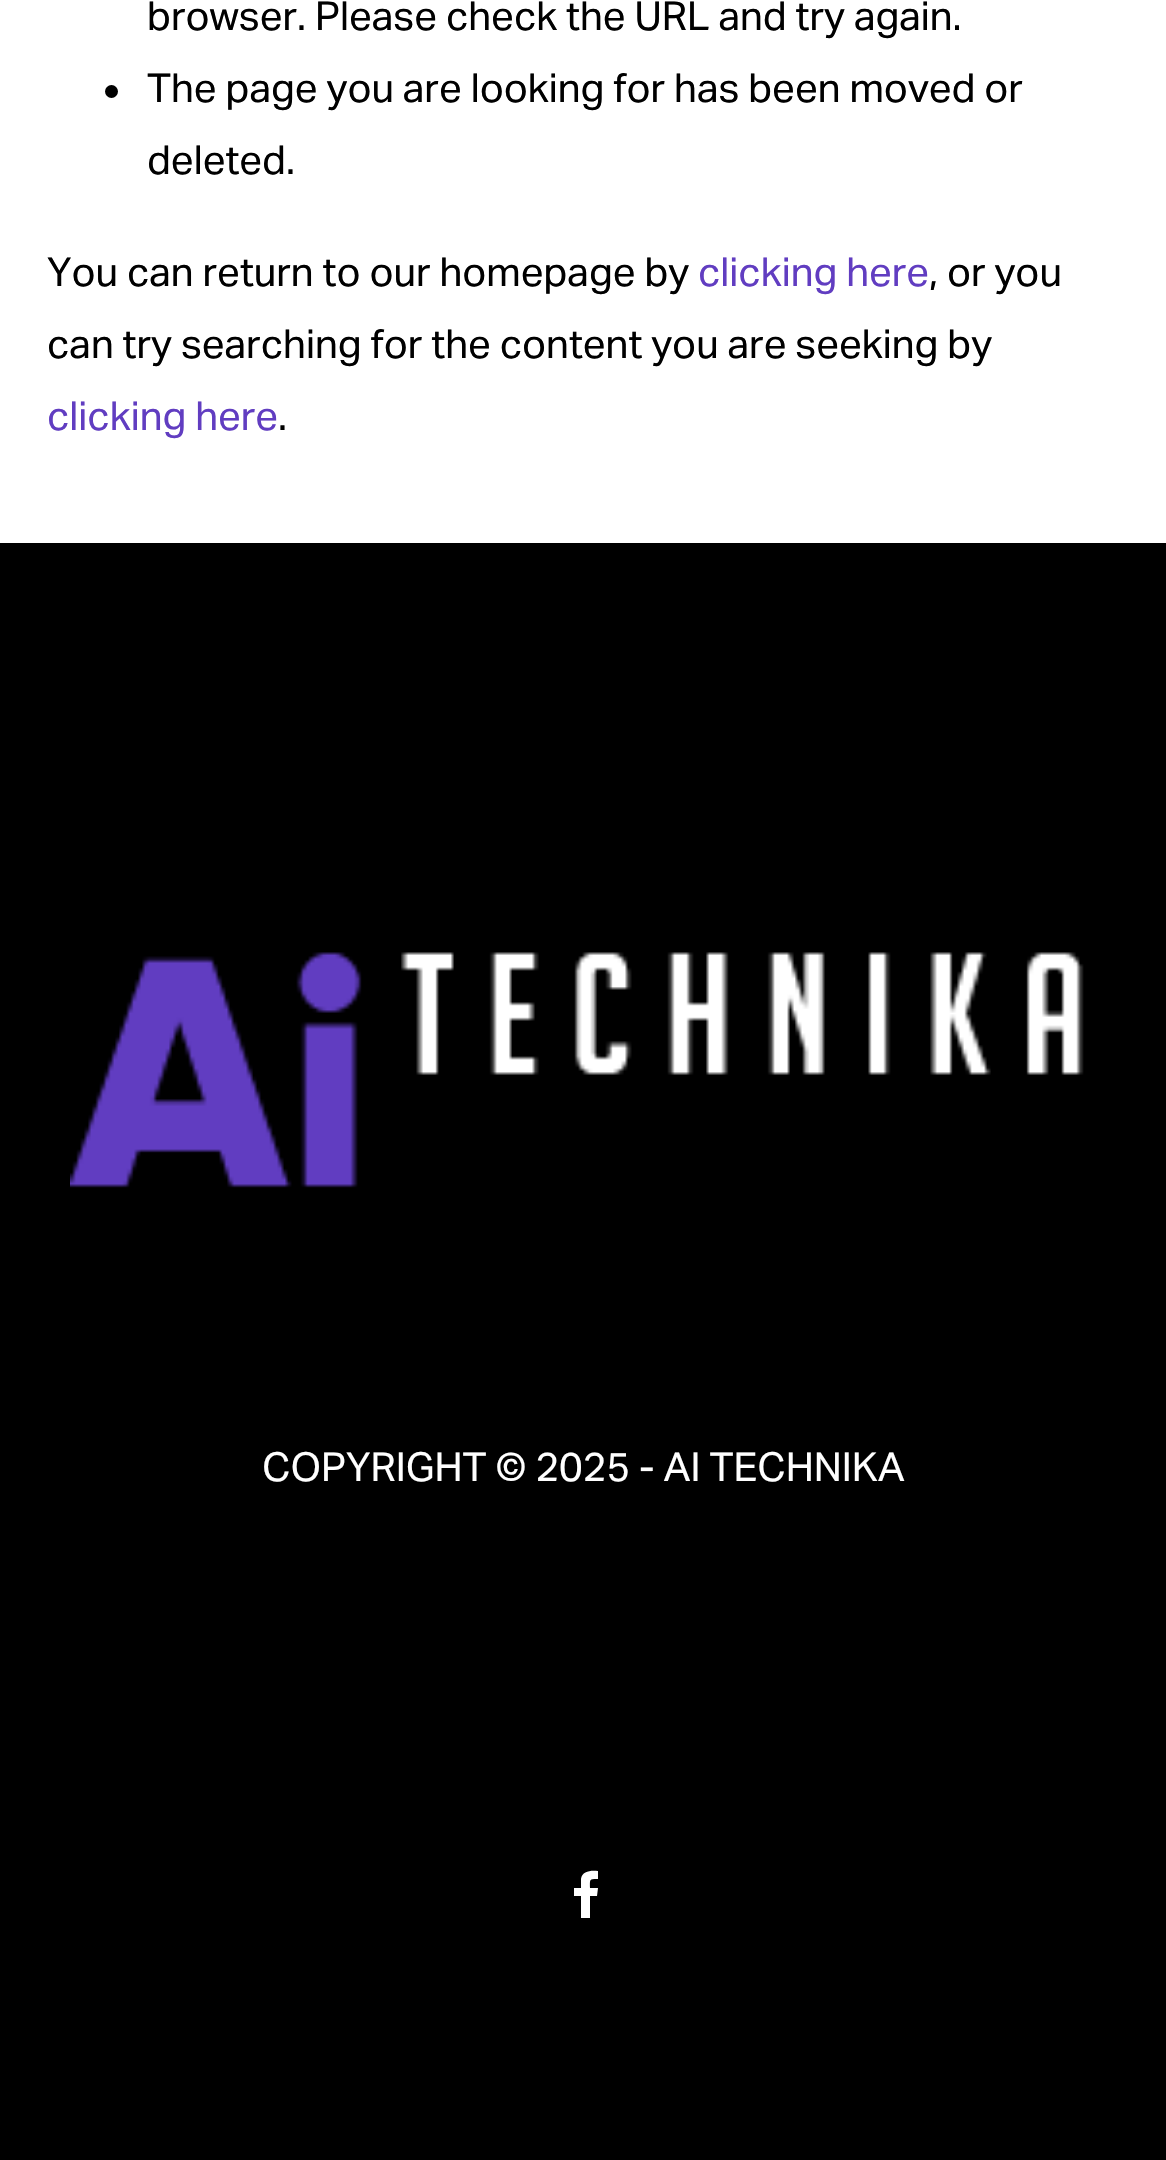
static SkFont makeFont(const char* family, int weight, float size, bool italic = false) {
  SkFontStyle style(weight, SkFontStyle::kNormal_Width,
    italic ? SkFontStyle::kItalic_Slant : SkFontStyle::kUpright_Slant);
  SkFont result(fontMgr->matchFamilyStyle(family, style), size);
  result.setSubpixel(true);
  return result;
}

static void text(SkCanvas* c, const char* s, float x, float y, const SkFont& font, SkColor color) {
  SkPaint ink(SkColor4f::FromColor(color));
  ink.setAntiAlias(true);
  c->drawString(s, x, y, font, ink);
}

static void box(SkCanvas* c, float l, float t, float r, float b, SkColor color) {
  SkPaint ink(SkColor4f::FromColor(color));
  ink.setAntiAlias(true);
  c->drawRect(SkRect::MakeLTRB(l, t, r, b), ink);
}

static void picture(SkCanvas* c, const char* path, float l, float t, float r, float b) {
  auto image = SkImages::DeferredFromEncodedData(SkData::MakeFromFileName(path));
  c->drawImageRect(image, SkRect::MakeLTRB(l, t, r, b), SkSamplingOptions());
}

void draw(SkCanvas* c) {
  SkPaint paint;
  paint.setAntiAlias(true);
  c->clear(0xffffffff);
  SkFont face1 = makeFont("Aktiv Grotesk", 400, 40);
  text(c, "browser. Please check the URL and try again.", 147, 30, face1, 0xff000000);
  paint.setColor(0xff000000);
  c->drawCircle(111.5f, 91.5f, 6.5f, paint);
  text(c, "The page you are looking for has been moved or", 147, 102, face1, 0xff000000);
  text(c, "deleted.", 147, 174, face1, 0xff000000);
  text(c, "You can return to our homepage by", 47, 286, face1, 0xff000000);
  text(c, "clicking here", 698, 286, face1, 0xff613dc1);
  text(c, ", or you", 929, 286, face1, 0xff000000);
  text(c, "can try searching for the content you are seeking by", 47, 358, face1, 0xff000000);
  text(c, "clicking here", 47, 430, face1, 0xff613dc1);
  text(c, ".", 278, 430, face1, 0xff000000);
  box(c, 0, 543, 1166, 2160, 0xff000000);
  picture(c, "img_01.png", 70, 952, 1084, 1188);
  text(c, "COPYRIGHT © 2025 - AI TECHNIKA", 262, 1481, face1, 0xffffffff);
  paint.setColor(0xffffffff);
  c->drawPath(SkPathBuilder().moveTo(590, 1918).lineTo(590, 1896).lineTo(597, 1896).lineTo(598, 1888).lineTo(590, 1888).cubicTo(590, 1879, 589, 1879, 598, 1879).lineTo(598, 1871).cubicTo(591, 1870, 582, 1871, 581, 1879).lineTo(581, 1888).lineTo(574, 1888).lineTo(574, 1896).lineTo(581, 1896).lineTo(581, 1918).close().detach(), paint);
}
